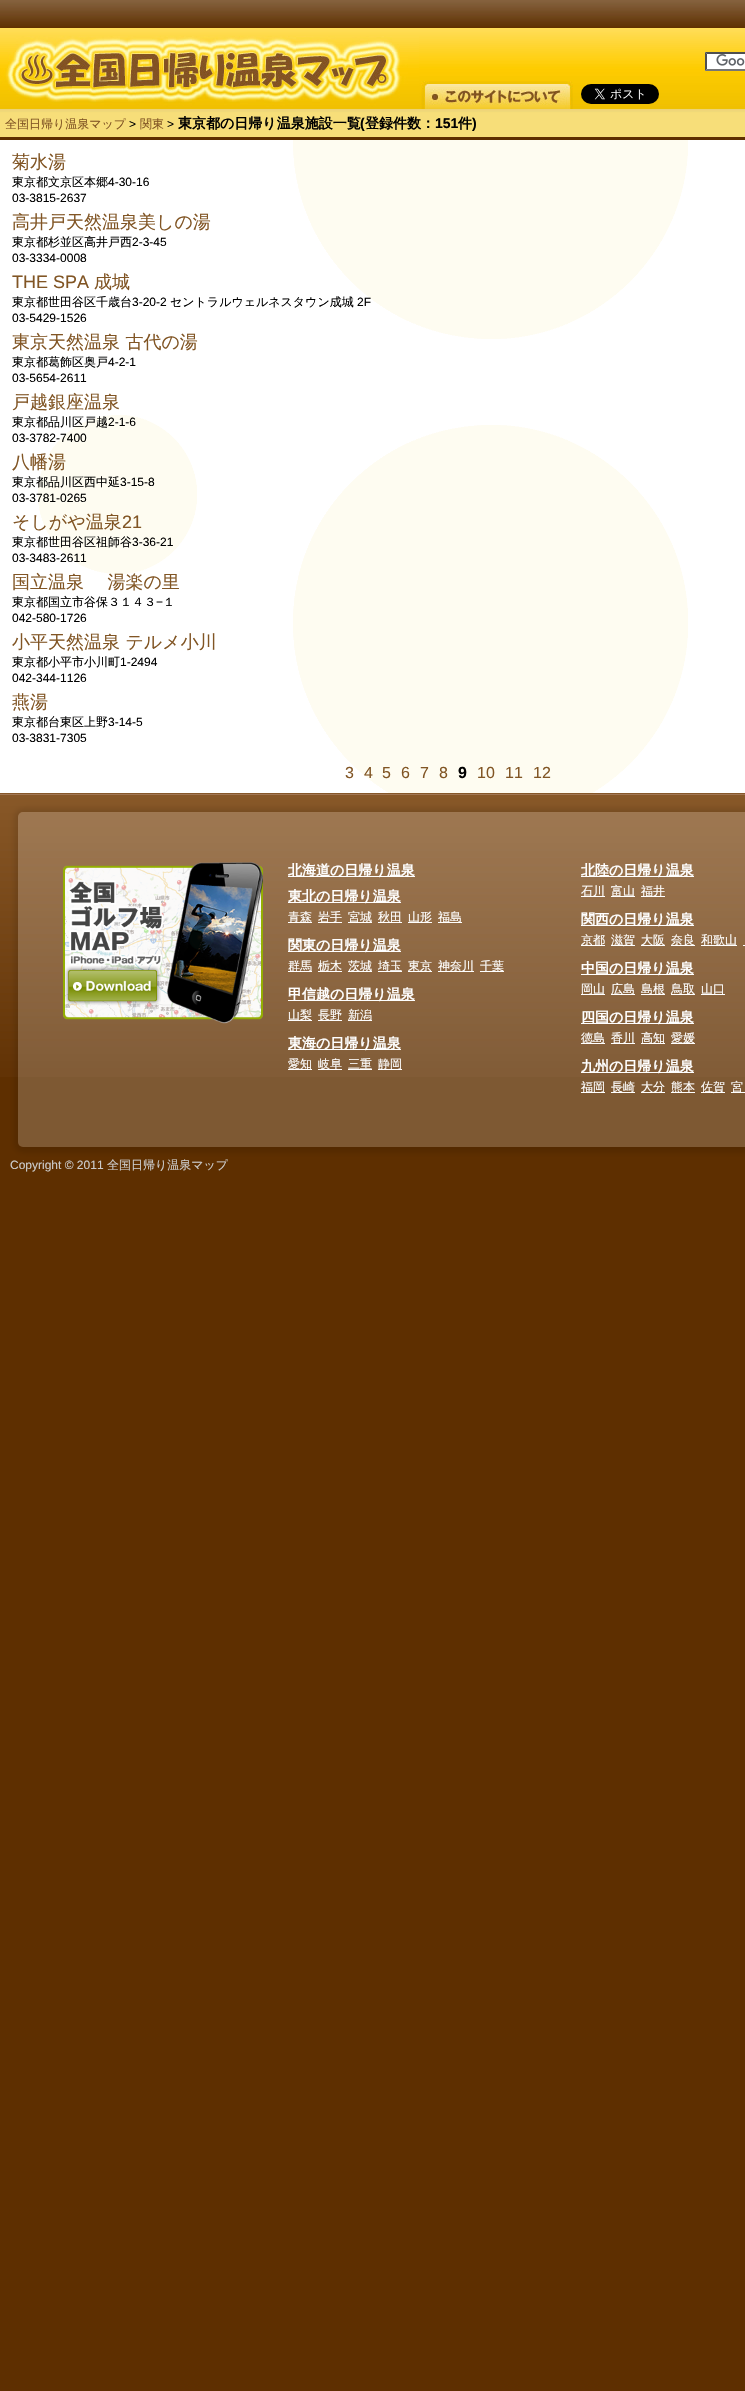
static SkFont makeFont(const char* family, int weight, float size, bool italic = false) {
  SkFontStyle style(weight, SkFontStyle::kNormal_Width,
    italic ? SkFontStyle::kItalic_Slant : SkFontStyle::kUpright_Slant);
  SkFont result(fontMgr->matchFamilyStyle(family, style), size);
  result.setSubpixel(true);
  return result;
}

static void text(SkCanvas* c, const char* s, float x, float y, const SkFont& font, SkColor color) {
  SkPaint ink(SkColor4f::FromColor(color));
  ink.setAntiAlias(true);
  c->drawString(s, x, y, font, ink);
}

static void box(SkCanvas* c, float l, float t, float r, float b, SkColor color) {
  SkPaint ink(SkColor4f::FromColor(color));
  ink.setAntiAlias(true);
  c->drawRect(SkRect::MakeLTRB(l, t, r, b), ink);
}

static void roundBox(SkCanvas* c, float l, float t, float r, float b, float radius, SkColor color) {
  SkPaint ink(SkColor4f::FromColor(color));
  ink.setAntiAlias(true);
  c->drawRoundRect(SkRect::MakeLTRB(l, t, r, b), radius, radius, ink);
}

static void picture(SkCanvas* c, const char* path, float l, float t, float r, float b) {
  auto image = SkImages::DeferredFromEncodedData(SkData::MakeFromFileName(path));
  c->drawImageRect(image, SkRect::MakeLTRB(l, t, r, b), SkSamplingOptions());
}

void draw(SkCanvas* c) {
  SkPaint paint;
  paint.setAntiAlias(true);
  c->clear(0xff5e2f00);
  picture(c, "img_01.png", 0, 0, 745, 137);
  picture(c, "img_02.png", 0, 36, 419, 107);
  box(c, 705, 52, 745, 71, 0xffffffff);
  picture(c, "img_03.png", 716, 54, 745, 66);
  paint.setColor(0xff4f4f4f);
  c->drawPath(SkPathBuilder().moveTo(705, 52).lineTo(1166, 52).lineTo(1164, 54).lineTo(707, 54).close().detach(), paint);
  paint.setColor(0xff767676);
  c->drawPath(SkPathBuilder().moveTo(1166, 71).lineTo(705, 71).lineTo(707, 69).lineTo(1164, 69).close().detach(), paint);
  paint.setColor(0xff4f4f4f);
  c->drawPath(SkPathBuilder().moveTo(705, 71).lineTo(705, 52).lineTo(707, 54).lineTo(707, 69).close().detach(), paint);
  picture(c, "img_04.png", 421, 81, 573, 109);
  picture(c, "img_05.png", 581, 84, 659, 104);
  SkFont face1 = makeFont("WenQuanYi Zen Hei", 500, 12);
  text(c, "全国日帰り温泉マップ", 5, 128, face1, 0xff815524);
  SkFont face2 = makeFont("Liberation Sans", 400, 12);
  text(c, ">", 129, 128, face2, 0xff000000);
  text(c, "関東", 140, 128, face1, 0xff815524);
  text(c, ">", 167, 128, face2, 0xff000000);
  SkFont face3 = makeFont("WenQuanYi Zen Hei", 700, 14);
  text(c, "東京都の日帰り温泉施設一覧", 178, 128, face3, 0xff000000);
  SkFont face4 = makeFont("Liberation Sans", 700, 14);
  text(c, "(", 360, 128, face4, 0xff000000);
  text(c, "登録件数：", 365, 128, face3, 0xff000000);
  text(c, "151", 435, 128, face4, 0xff000000);
  text(c, "件", 458, 128, face3, 0xff000000);
  text(c, ")", 472, 128, face4, 0xff000000);
  box(c, 0, 140, 745, 793, 0xffffffff);
  picture(c, "img_06.png", 38, 140, 688, 793);
  SkFont face5 = makeFont("WenQuanYi Zen Hei", 500, 18);
  text(c, "菊水湯", 12, 168, face5, 0xff815524);
  text(c, "東京都文京区本郷", 12, 186, face1, 0xff000000);
  text(c, "4-30-16", 108, 186, face2, 0xff000000);
  text(c, "03-3815-2637", 12, 202, face2, 0xff000000);
  text(c, "高井戸天然温泉美しの湯", 12, 228, face5, 0xff815524);
  text(c, "東京都杉並区高井戸西", 12, 246, face1, 0xff000000);
  text(c, "2-3-45", 132, 246, face2, 0xff000000);
  text(c, "03-3334-0008", 12, 262, face2, 0xff000000);
  SkFont face6 = makeFont("Liberation Sans", 400, 18);
  text(c, "THE SPA", 12, 288, face6, 0xff815524);
  text(c, "成城", 94, 288, face5, 0xff815524);
  text(c, "東京都世田谷区千歳台", 12, 306, face1, 0xff000000);
  text(c, "3-20-2", 132, 306, face2, 0xff000000);
  text(c, "セントラルウェルネスタウン成城", 170, 306, face1, 0xff000000);
  text(c, "2F", 357, 306, face2, 0xff000000);
  text(c, "03-5429-1526", 12, 322, face2, 0xff000000);
  text(c, "東京天然温泉 古代の湯", 12, 348, face5, 0xff815524);
  text(c, "東京都葛飾区奥戸", 12, 366, face1, 0xff000000);
  text(c, "4-2-1", 108, 366, face2, 0xff000000);
  text(c, "03-5654-2611", 12, 382, face2, 0xff000000);
  text(c, "戸越銀座温泉", 12, 408, face5, 0xff815524);
  text(c, "東京都品川区戸越", 12, 426, face1, 0xff000000);
  text(c, "2-1-6", 108, 426, face2, 0xff000000);
  text(c, "03-3782-7400", 12, 442, face2, 0xff000000);
  text(c, "八幡湯", 12, 468, face5, 0xff815524);
  text(c, "東京都品川区西中延", 12, 486, face1, 0xff000000);
  text(c, "3-15-8", 120, 486, face2, 0xff000000);
  text(c, "03-3781-0265", 12, 502, face2, 0xff000000);
  text(c, "そしがや温泉", 12, 528, face5, 0xff815524);
  text(c, "21", 122, 528, face6, 0xff815524);
  text(c, "東京都世田谷区祖師谷", 12, 546, face1, 0xff000000);
  text(c, "3-36-21", 132, 546, face2, 0xff000000);
  text(c, "03-3483-2611", 12, 562, face2, 0xff000000);
  text(c, "国立温泉　 湯楽の里", 12, 588, face5, 0xff815524);
  text(c, "東京都国立市谷保３１４３", 12, 606, face1, 0xff000000);
  text(c, "−", 156, 606, face2, 0xff000000);
  text(c, "１", 163, 606, face1, 0xff000000);
  text(c, "042-580-1726", 12, 622, face2, 0xff000000);
  text(c, "小平天然温泉 テルメ小川", 12, 648, face5, 0xff815524);
  text(c, "東京都小平市小川町", 12, 666, face1, 0xff000000);
  text(c, "1-2494", 120, 666, face2, 0xff000000);
  text(c, "042-344-1126", 12, 682, face2, 0xff000000);
  text(c, "燕湯", 12, 708, face5, 0xff815524);
  text(c, "東京都台東区上野", 12, 726, face1, 0xff000000);
  text(c, "3-14-5", 108, 726, face2, 0xff000000);
  text(c, "03-3831-7305", 12, 742, face2, 0xff000000);
  SkFont face7 = makeFont("Liberation Sans", 400, 16);
  text(c, "3", 345, 778, face7, 0xff815524);
  text(c, "4", 364, 778, face7, 0xff815524);
  text(c, "5", 382, 778, face7, 0xff815524);
  text(c, "6", 401, 778, face7, 0xff815524);
  text(c, "7", 420, 778, face7, 0xff815524);
  text(c, "8", 439, 778, face7, 0xff815524);
  SkFont face8 = makeFont("Liberation Sans", 700, 16);
  text(c, "9", 458, 778, face8, 0xff000000);
  text(c, "10", 477, 778, face7, 0xff815524);
  text(c, "11", 505, 778, face7, 0xff815524);
  text(c, "12", 533, 778, face7, 0xff815524);
  picture(c, "img_07.png", 0, 793, 745, 1077);
  c->save();
  c->clipPath(SkPathBuilder(SkPathFillType::kEvenOdd).moveTo(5, 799).lineTo(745, 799).lineTo(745, 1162).lineTo(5, 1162).close().moveTo(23, 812).lineTo(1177, 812).cubicTo(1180, 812, 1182, 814, 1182, 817).lineTo(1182, 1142).cubicTo(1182, 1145, 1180, 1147, 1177, 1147).lineTo(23, 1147).cubicTo(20, 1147, 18, 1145, 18, 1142).lineTo(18, 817).cubicTo(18, 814, 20, 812, 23, 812).close().detach(), true);
  paint.setColor(0x1a000000);
  paint.setMaskFilter(SkMaskFilter::MakeBlur(kNormal_SkBlurStyle, 2.5f));
  c->drawRoundRect(SkRect::MakeLTRB(14, 808, 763, 1153), 10, 10, paint);
  paint.setMaskFilter(nullptr);
  c->restore();
  roundBox(c, 18, 812, 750, 1147, 5, 0x33ffffff);
  picture(c, "img_08.png", 63, 862, 263, 1024);
  box(c, 288, 876, 415, 877, 0xffffffff);
  text(c, "北海道の日帰り温泉", 288, 875, face3, 0xffffffff);
  box(c, 288, 902, 401, 903, 0xffffffff);
  text(c, "東北の日帰り温泉", 288, 901, face3, 0xffffffff);
  box(c, 288, 922, 312, 923, 0xffffffff);
  text(c, "青森", 288, 921, face1, 0xffffffff);
  box(c, 318, 922, 342, 923, 0xffffffff);
  text(c, "岩手", 318, 921, face1, 0xffffffff);
  box(c, 348, 922, 372, 923, 0xffffffff);
  text(c, "宮城", 348, 921, face1, 0xffffffff);
  box(c, 378, 922, 402, 923, 0xffffffff);
  text(c, "秋田", 378, 921, face1, 0xffffffff);
  box(c, 408, 922, 432, 923, 0xffffffff);
  text(c, "山形", 408, 921, face1, 0xffffffff);
  box(c, 438, 922, 462, 923, 0xffffffff);
  text(c, "福島", 438, 921, face1, 0xffffffff);
  box(c, 288, 951, 401, 952, 0xffffffff);
  text(c, "関東の日帰り温泉", 288, 950, face3, 0xffffffff);
  box(c, 288, 971, 312, 972, 0xffffffff);
  text(c, "群馬", 288, 970, face1, 0xffffffff);
  box(c, 318, 971, 342, 972, 0xffffffff);
  text(c, "栃木", 318, 970, face1, 0xffffffff);
  box(c, 348, 971, 372, 972, 0xffffffff);
  text(c, "茨城", 348, 970, face1, 0xffffffff);
  box(c, 378, 971, 402, 972, 0xffffffff);
  text(c, "埼玉", 378, 970, face1, 0xffffffff);
  box(c, 408, 971, 432, 972, 0xffffffff);
  text(c, "東京", 408, 970, face1, 0xffffffff);
  box(c, 438, 971, 474, 972, 0xffffffff);
  text(c, "神奈川", 438, 970, face1, 0xffffffff);
  box(c, 480, 971, 504, 972, 0xffffffff);
  text(c, "千葉", 480, 970, face1, 0xffffffff);
  box(c, 288, 1000, 415, 1001, 0xffffffff);
  text(c, "甲信越の日帰り温泉", 288, 999, face3, 0xffffffff);
  box(c, 288, 1020, 312, 1021, 0xffffffff);
  text(c, "山梨", 288, 1019, face1, 0xffffffff);
  box(c, 318, 1020, 342, 1021, 0xffffffff);
  text(c, "長野", 318, 1019, face1, 0xffffffff);
  box(c, 348, 1020, 372, 1021, 0xffffffff);
  text(c, "新潟", 348, 1019, face1, 0xffffffff);
  box(c, 288, 1049, 401, 1050, 0xffffffff);
  text(c, "東海の日帰り温泉", 288, 1048, face3, 0xffffffff);
  box(c, 288, 1069, 312, 1070, 0xffffffff);
  text(c, "愛知", 288, 1068, face1, 0xffffffff);
  box(c, 318, 1069, 342, 1070, 0xffffffff);
  text(c, "岐阜", 318, 1068, face1, 0xffffffff);
  text(c, "三重", 348, 1068, face1, 0xffffffff);
  box(c, 348, 1069, 372, 1070, 0xffffffff);
  box(c, 378, 1069, 402, 1070, 0xffffffff);
  text(c, "静岡", 378, 1068, face1, 0xffffffff);
  box(c, 581, 876, 694, 877, 0xffffffff);
  text(c, "北陸の日帰り温泉", 581, 875, face3, 0xffffffff);
  box(c, 581, 896, 605, 897, 0xffffffff);
  text(c, "石川", 581, 895, face1, 0xffffffff);
  box(c, 611, 896, 635, 897, 0xffffffff);
  text(c, "富山", 611, 895, face1, 0xffffffff);
  box(c, 641, 896, 665, 897, 0xffffffff);
  text(c, "福井", 641, 895, face1, 0xffffffff);
  box(c, 581, 925, 694, 926, 0xffffffff);
  text(c, "関西の日帰り温泉", 581, 924, face3, 0xffffffff);
  box(c, 581, 945, 605, 946, 0xffffffff);
  text(c, "京都", 581, 944, face1, 0xffffffff);
  box(c, 611, 945, 635, 946, 0xffffffff);
  text(c, "滋賀", 611, 944, face1, 0xffffffff);
  box(c, 641, 945, 665, 946, 0xffffffff);
  text(c, "大阪", 641, 944, face1, 0xffffffff);
  box(c, 671, 945, 695, 946, 0xffffffff);
  text(c, "奈良", 671, 944, face1, 0xffffffff);
  box(c, 701, 945, 737, 946, 0xffffffff);
  text(c, "和歌山", 701, 944, face1, 0xffffffff);
  box(c, 743, 945, 745, 946, 0xffffffff);
  box(c, 581, 974, 694, 975, 0xffffffff);
  text(c, "中国の日帰り温泉", 581, 973, face3, 0xffffffff);
  box(c, 581, 994, 605, 995, 0xffffffff);
  text(c, "岡山", 581, 993, face1, 0xffffffff);
  box(c, 611, 994, 635, 995, 0xffffffff);
  text(c, "広島", 611, 993, face1, 0xffffffff);
  box(c, 641, 994, 665, 995, 0xffffffff);
  text(c, "島根", 641, 993, face1, 0xffffffff);
  box(c, 671, 994, 695, 995, 0xffffffff);
  text(c, "鳥取", 671, 993, face1, 0xffffffff);
  box(c, 701, 994, 725, 995, 0xffffffff);
  text(c, "山口", 701, 993, face1, 0xffffffff);
  box(c, 581, 1023, 694, 1024, 0xffffffff);
  text(c, "四国の日帰り温泉", 581, 1022, face3, 0xffffffff);
  box(c, 581, 1043, 605, 1044, 0xffffffff);
  text(c, "徳島", 581, 1042, face1, 0xffffffff);
  box(c, 611, 1043, 635, 1044, 0xffffffff);
  text(c, "香川", 611, 1042, face1, 0xffffffff);
  box(c, 641, 1043, 665, 1044, 0xffffffff);
  text(c, "高知", 641, 1042, face1, 0xffffffff);
  box(c, 671, 1043, 695, 1044, 0xffffffff);
  text(c, "愛媛", 671, 1042, face1, 0xffffffff);
  box(c, 581, 1072, 694, 1073, 0xffffffff);
  text(c, "九州の日帰り温泉", 581, 1071, face3, 0xffffffff);
  box(c, 581, 1092, 605, 1093, 0xffffffff);
  text(c, "福岡", 581, 1091, face1, 0xffffffff);
  box(c, 611, 1092, 635, 1093, 0xffffffff);
  text(c, "長崎", 611, 1091, face1, 0xffffffff);
  box(c, 641, 1092, 665, 1093, 0xffffffff);
  text(c, "大分", 641, 1091, face1, 0xffffffff);
  box(c, 671, 1092, 695, 1093, 0xffffffff);
  text(c, "熊本", 671, 1091, face1, 0xffffffff);
  box(c, 701, 1092, 725, 1093, 0xffffffff);
  text(c, "佐賀", 701, 1091, face1, 0xffffffff);
  box(c, 731, 1092, 745, 1093, 0xffffffff);
  text(c, "宮", 731, 1091, face1, 0xffffffff);
  text(c, "Copyright © 2011", 10, 1169, face2, 0xffcccccc);
  text(c, "全国日帰り温泉マップ", 107, 1169, face1, 0xffcccccc);
}
